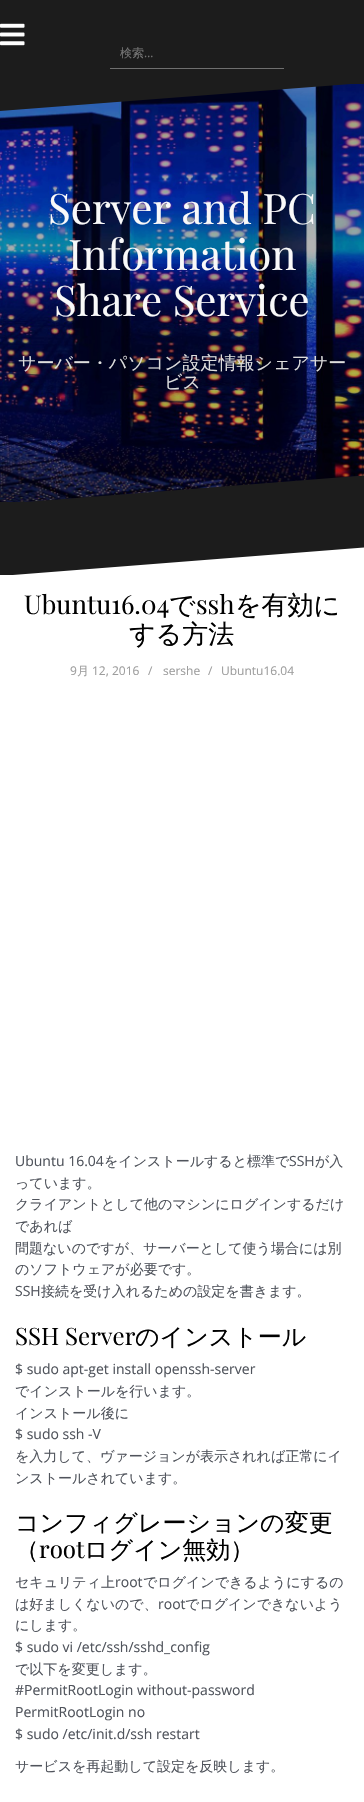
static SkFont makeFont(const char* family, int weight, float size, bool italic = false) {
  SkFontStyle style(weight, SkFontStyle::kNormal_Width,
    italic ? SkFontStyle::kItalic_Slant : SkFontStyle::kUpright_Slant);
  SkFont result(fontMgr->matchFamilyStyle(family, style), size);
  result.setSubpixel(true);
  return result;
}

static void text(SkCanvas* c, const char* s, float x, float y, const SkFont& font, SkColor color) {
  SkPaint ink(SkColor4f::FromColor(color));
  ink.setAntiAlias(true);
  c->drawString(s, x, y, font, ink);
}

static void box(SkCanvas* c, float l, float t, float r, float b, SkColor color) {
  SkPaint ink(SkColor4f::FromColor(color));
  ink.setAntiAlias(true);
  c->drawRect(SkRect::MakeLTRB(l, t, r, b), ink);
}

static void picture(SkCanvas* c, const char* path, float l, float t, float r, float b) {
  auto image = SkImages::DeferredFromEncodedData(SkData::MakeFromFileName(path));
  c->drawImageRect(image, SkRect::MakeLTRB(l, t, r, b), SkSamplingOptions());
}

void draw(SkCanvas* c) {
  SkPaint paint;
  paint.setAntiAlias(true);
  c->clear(0xff1c1c1c);
  picture(c, "img_01.png", 0, 23, 25, 46);
  box(c, 110, 68, 284, 69, 0xff6f6f6f);
  SkFont face1 = makeFont("WenQuanYi Zen Hei", 500, 12);
  text(c, "検索", 120, 57, face1, 0xff757575);
  SkFont face2 = makeFont("Open Sans", 400, 12);
  text(c, "…", 144, 57, face2, 0xff757575);
  picture(c, "img_02.png", 0, 84, 364, 502);
  paint.setColor(0xff1c1c1c);
  c->drawPath(SkPathBuilder().moveTo(0, 111).lineTo(0, 83).lineTo(364, 83).detach(), paint);
  SkFont face3 = makeFont("Playfair Display", 400, 42);
  text(c, "Server and PC", 48, 224, face3, 0xfff9f9f9);
  text(c, "Information", 68, 270, face3, 0xfff9f9f9);
  text(c, "Share Service", 54, 316, face3, 0xfff9f9f9);
  SkFont face4 = makeFont("WenQuanYi Zen Hei", 500, 18);
  text(c, "サーバー・パソコン設定情報シェアサー", 18, 369, face4, 0xffdddddd);
  text(c, "ビス", 164, 388, face4, 0xffdddddd);
  c->drawPath(SkPathBuilder().moveTo(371, 475).lineTo(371, 504).lineTo(0, 504).detach(), paint);
  box(c, 0, 575, 364, 1802, 0xffffffff);
  paint.setColor(0xffffffff);
  c->drawPath(SkPathBuilder().moveTo(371, 547).lineTo(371, 576).lineTo(0, 576).detach(), paint);
  SkFont face5 = makeFont("Playfair Display", 400, 26);
  text(c, "Ubuntu16.04", 24, 614, face5, 0xff000000);
  SkFont face6 = makeFont("WenQuanYi Zen Hei", 500, 26);
  text(c, "で", 169, 614, face6, 0xff000000);
  text(c, "ssh", 196, 614, face5, 0xff000000);
  text(c, "を有効に", 235, 614, face6, 0xff000000);
  text(c, "する方法", 129, 643, face6, 0xff000000);
  text(c, "9", 70, 675, face2, 0xff9d9d9d);
  text(c, "月", 77, 675, face1, 0xff9d9d9d);
  text(c, "12, 2016", 92, 675, face2, 0xff9d9d9d);
  text(c, "/", 148, 675, face2, 0xff9d9d9d);
  text(c, "sershe", 163, 675, face2, 0xff9d9d9d);
  text(c, "/", 208, 675, face2, 0xff9d9d9d);
  text(c, "Ubuntu16.04", 221, 675, face2, 0xff9d9d9d);
  SkFont face7 = makeFont("Open Sans", 400, 14);
  text(c, "Ubuntu 16.04", 15, 1166, face7, 0xff50545c);
  SkFont face8 = makeFont("WenQuanYi Zen Hei", 500, 14);
  text(c, "をインストールすると標準で", 104, 1166, face8, 0xff50545c);
  text(c, "SSH", 289, 1166, face7, 0xff50545c);
  text(c, "が入", 315, 1166, face8, 0xff50545c);
  text(c, "っています。", 15, 1188, face8, 0xff50545c);
  text(c, "クライアントとして他のマシンにログインするだけ", 15, 1209, face8, 0xff50545c);
  text(c, "であれば", 15, 1231, face8, 0xff50545c);
  text(c, "問題ないのですが、サーバーとして使う場合には別", 15, 1253, face8, 0xff50545c);
  text(c, "のソフトウェアが必要です。", 15, 1274, face8, 0xff50545c);
  text(c, "SSH", 15, 1296, face7, 0xff50545c);
  text(c, "接続を受け入れるための設定を書きます。", 41, 1296, face8, 0xff50545c);
  SkFont face9 = makeFont("Playfair Display", 400, 24);
  text(c, "SSH Server", 15, 1345, face9, 0xff000000);
  SkFont face10 = makeFont("WenQuanYi Zen Hei", 500, 24);
  text(c, "のインストール", 135, 1345, face10, 0xff000000);
  text(c, "$ sudo apt-get install openssh-server", 15, 1374, face7, 0xff50545c);
  text(c, "でインストールを行います。", 15, 1396, face8, 0xff50545c);
  text(c, "インストール後に", 15, 1418, face8, 0xff50545c);
  text(c, "$ sudo ssh -V", 15, 1439, face7, 0xff50545c);
  text(c, "を入力して、ヴァージョンが表示されれば正常にイ", 15, 1461, face8, 0xff50545c);
  text(c, "ンストールされています。", 15, 1483, face8, 0xff50545c);
  text(c, "コンフィグレーションの変更", 15, 1531, face10, 0xff000000);
  text(c, "（", 15, 1558, face10, 0xff000000);
  text(c, "root", 39, 1558, face9, 0xff000000);
  text(c, "ログイン無効）", 84, 1558, face10, 0xff000000);
  text(c, "セキュリティ上", 15, 1587, face8, 0xff50545c);
  text(c, "root", 115, 1587, face7, 0xff50545c);
  text(c, "でログインできるようにするの", 143, 1587, face8, 0xff50545c);
  text(c, "は好ましくないので、", 15, 1609, face8, 0xff50545c);
  text(c, "root", 158, 1609, face7, 0xff50545c);
  text(c, "でログインできないよう", 185, 1609, face8, 0xff50545c);
  text(c, "にします。", 15, 1630, face8, 0xff50545c);
  text(c, "$ sudo vi /etc/ssh/sshd_config", 15, 1652, face7, 0xff50545c);
  text(c, "で以下を変更します。", 15, 1674, face8, 0xff50545c);
  text(c, "#PermitRootLogin without-password", 15, 1695, face7, 0xff50545c);
  text(c, "PermitRootLogin no", 15, 1717, face7, 0xff50545c);
  text(c, "$ sudo /etc/init.d/ssh restart", 15, 1739, face7, 0xff50545c);
  text(c, "サービスを再起動して設定を反映します。", 15, 1771, face8, 0xff50545c);
}
